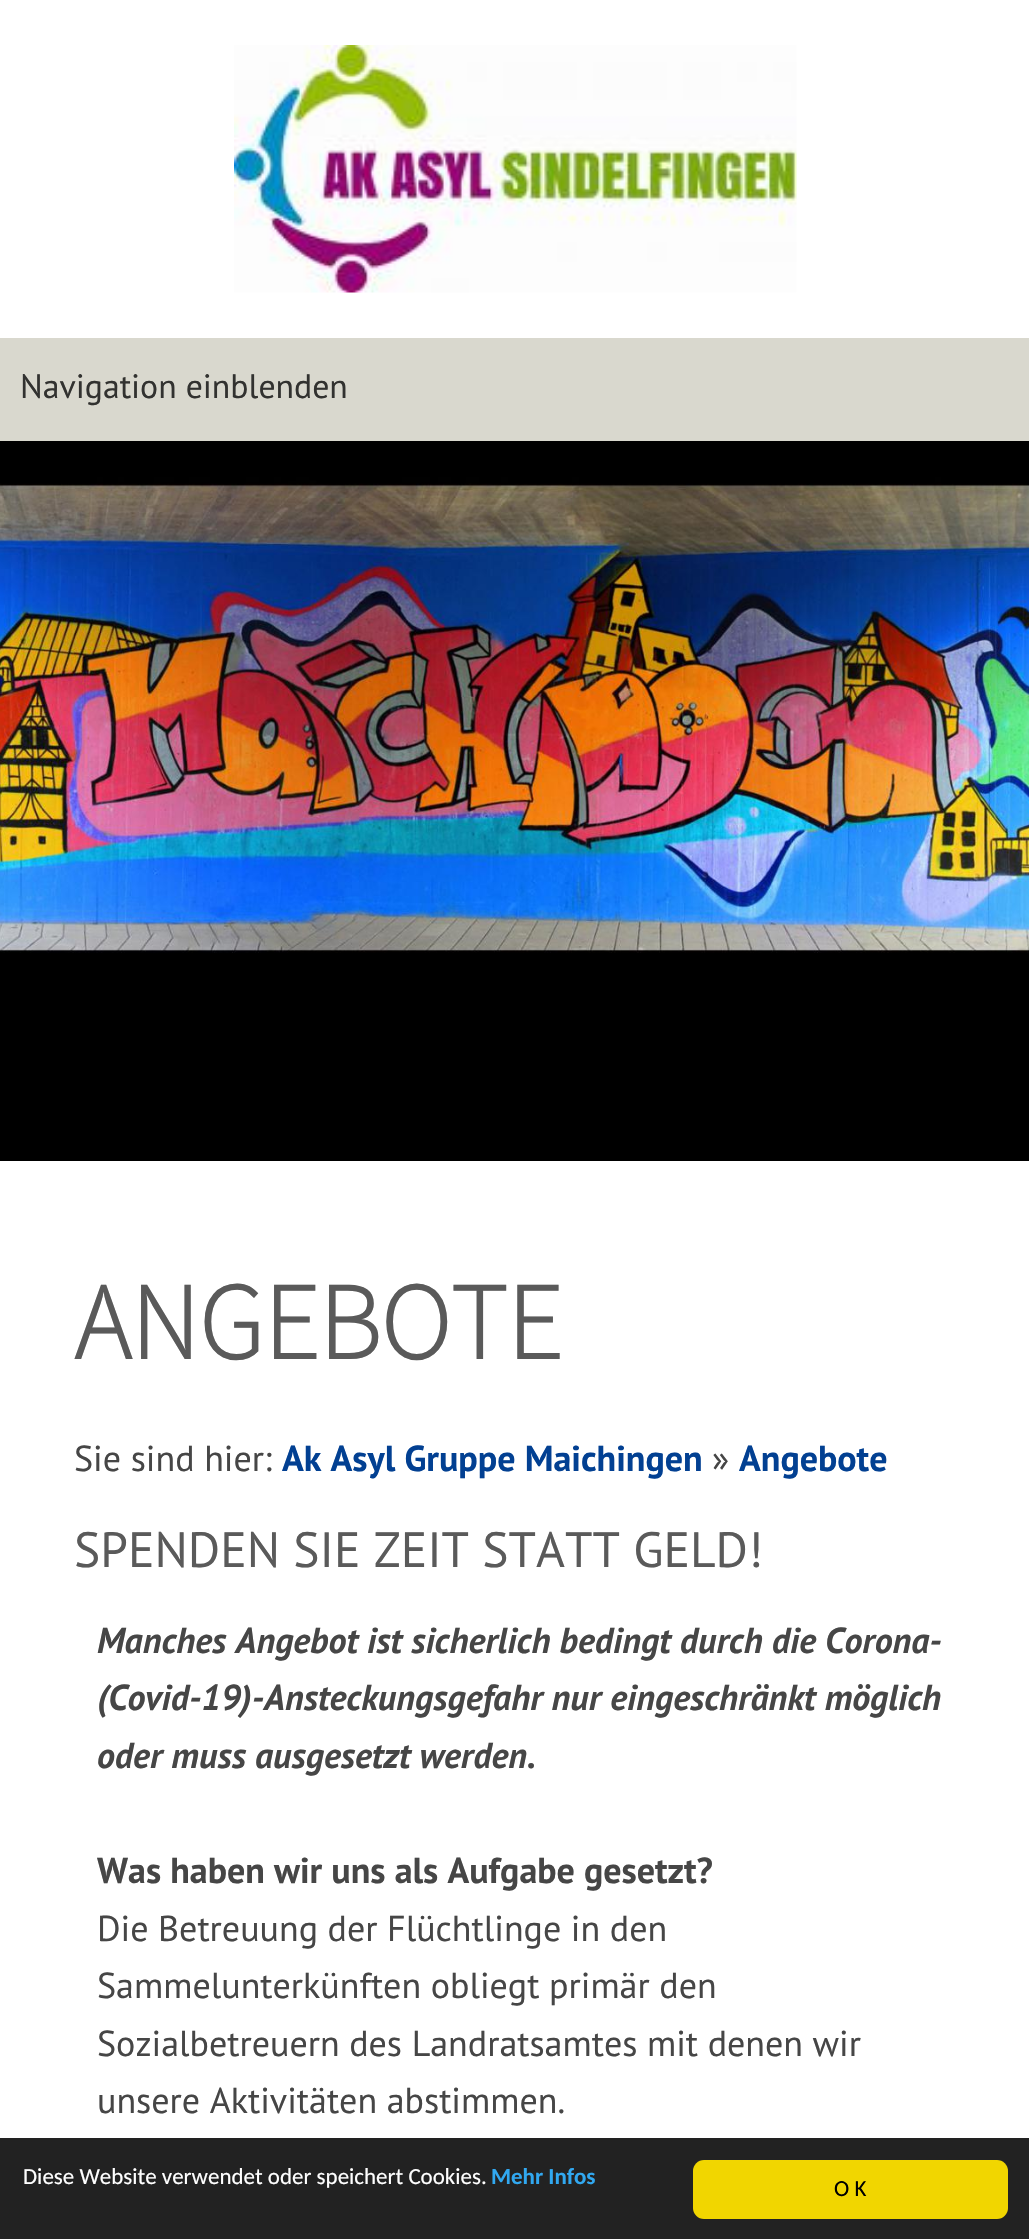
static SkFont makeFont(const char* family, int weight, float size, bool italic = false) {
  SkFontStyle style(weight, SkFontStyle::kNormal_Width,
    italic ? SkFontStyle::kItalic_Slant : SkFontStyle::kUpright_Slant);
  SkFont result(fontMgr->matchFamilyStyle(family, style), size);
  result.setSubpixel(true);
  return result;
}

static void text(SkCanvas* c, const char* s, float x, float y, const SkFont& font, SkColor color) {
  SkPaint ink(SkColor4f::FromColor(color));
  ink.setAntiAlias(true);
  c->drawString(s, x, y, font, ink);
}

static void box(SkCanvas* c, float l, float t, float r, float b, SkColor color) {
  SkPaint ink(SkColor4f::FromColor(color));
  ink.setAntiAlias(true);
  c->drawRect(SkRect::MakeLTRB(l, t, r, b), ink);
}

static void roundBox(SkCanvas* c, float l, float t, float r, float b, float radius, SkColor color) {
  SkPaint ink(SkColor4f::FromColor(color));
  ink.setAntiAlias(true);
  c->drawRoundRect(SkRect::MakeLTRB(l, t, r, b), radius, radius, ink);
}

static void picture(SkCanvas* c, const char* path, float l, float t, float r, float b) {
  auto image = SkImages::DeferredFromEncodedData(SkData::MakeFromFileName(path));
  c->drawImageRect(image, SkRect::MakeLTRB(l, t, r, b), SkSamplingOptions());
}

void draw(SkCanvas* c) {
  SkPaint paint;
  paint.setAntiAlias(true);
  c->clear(0xffd9d8ce);
  box(c, 0, 0, 1029, 338, 0xffffffff);
  picture(c, "img_01.png", 234, 45, 797, 293);
  SkFont face1 = makeFont("PT Sans", 400, 33.75f);
  text(c, "Navigation einblenden", 20, 398, face1, 0xff323230);
  picture(c, "img_02.png", 0, 441, 1029, 1161);
  box(c, 0, 1161, 1029, 2138, 0xffffffff);
  SkFont face2 = makeFont("Source Sans Pro", 700, 108);
  text(c, "ANGEBOTE", 74, 1359, face2, 0xff5a5a5a);
  SkFont face3 = makeFont("PT Sans", 400, 36);
  text(c, "Sie sind hier:", 74, 1471, face3, 0xff464646);
  SkFont face4 = makeFont("PT Sans", 700, 36);
  text(c, "Ak Asyl Gruppe Maichingen", 282, 1471, face4, 0xff024092);
  text(c, "»", 712, 1471, face3, 0xff464646);
  text(c, "Angebote", 739, 1471, face4, 0xff024092);
  SkFont face5 = makeFont("PT Sans", 400, 49.5f);
  text(c, "SPENDEN SIE ZEIT STATT GELD!", 74, 1567, face5, 0xff5a5a5a);
  SkFont face6 = makeFont("PT Sans", 700, 36, true);
  text(c, "Manches Angebot ist sicherlich bedingt durch die Corona-", 97, 1653, face6, 0xff464646);
  text(c, "(Covid-19)-Ansteckungsgefahr nur eingeschränkt möglich", 97, 1710, face6, 0xff464646);
  text(c, "oder muss ausgesetzt werden.", 97, 1768, face6, 0xff464646);
  text(c, "Was haben wir uns als Aufgabe gesetzt?", 97, 1883, face4, 0xff464646);
  text(c, "Die Betreuung der Flüchtlinge in den", 97, 1941, face3, 0xff464646);
  text(c, "Sammelunterkünften obliegt primär den", 97, 1998, face3, 0xff464646);
  text(c, "Sozialbetreuern des Landratsamtes mit denen wir", 97, 2056, face3, 0xff464646);
  text(c, "unsere Aktivitäten abstimmen.", 97, 2113, face3, 0xff464646);
  box(c, 0, 2138, 1029, 2239, 0xff222222);
  SkFont face7 = makeFont("Carlito", 400, 22.95f);
  text(c, "Diese Website verwendet oder speichert Cookies.", 23, 2184, face7, 0xffffffff);
  SkFont face8 = makeFont("Carlito", 700, 22.95f);
  text(c, "Mehr Infos", 491, 2184, face8, 0xff31a8f0);
  roundBox(c, 693, 2160, 1008, 2219, 11, 0xfff1d600);
  text(c, "O K", 834, 2196, face7, 0xff000000);
}
